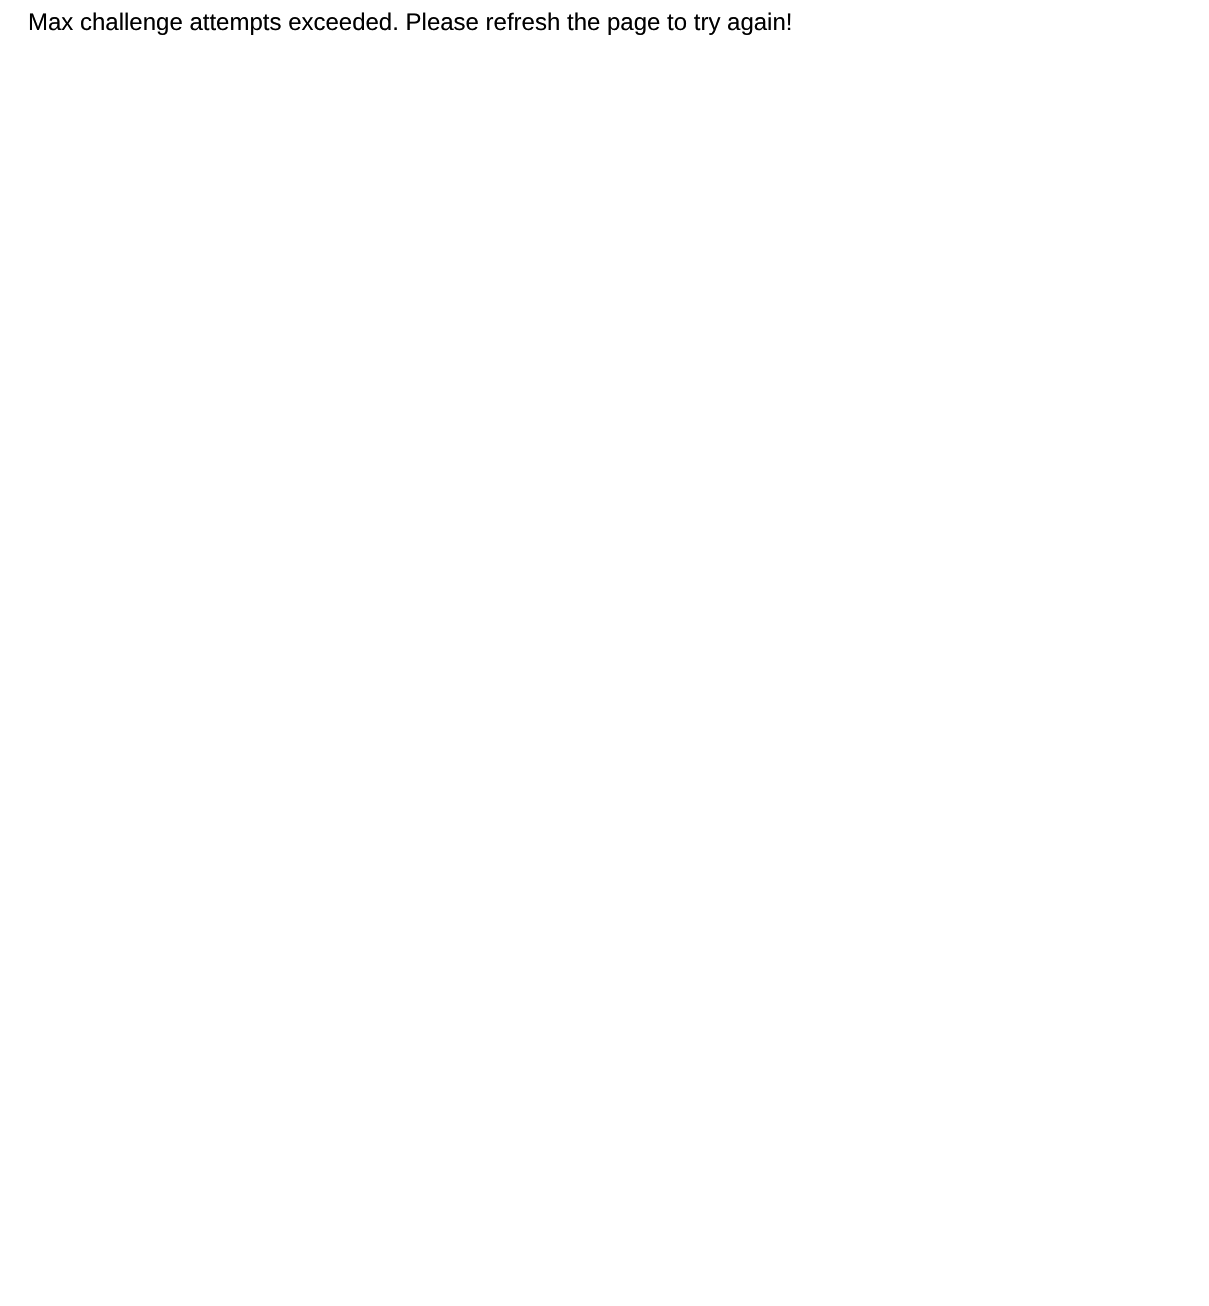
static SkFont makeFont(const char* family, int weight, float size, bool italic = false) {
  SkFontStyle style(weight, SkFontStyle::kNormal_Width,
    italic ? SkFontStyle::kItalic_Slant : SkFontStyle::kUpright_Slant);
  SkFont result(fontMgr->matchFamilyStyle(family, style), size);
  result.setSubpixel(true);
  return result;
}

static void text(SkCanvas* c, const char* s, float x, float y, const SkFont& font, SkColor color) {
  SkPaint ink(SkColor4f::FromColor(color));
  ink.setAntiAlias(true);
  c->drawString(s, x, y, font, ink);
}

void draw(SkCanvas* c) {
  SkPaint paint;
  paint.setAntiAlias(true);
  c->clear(0xffffffff);
  SkFont face1 = makeFont("Liberation Sans", 400, 24);
  text(c, "Max challenge attempts exceeded. Please refresh the page to try again!", 28, 30, face1, 0xff000000);
}
